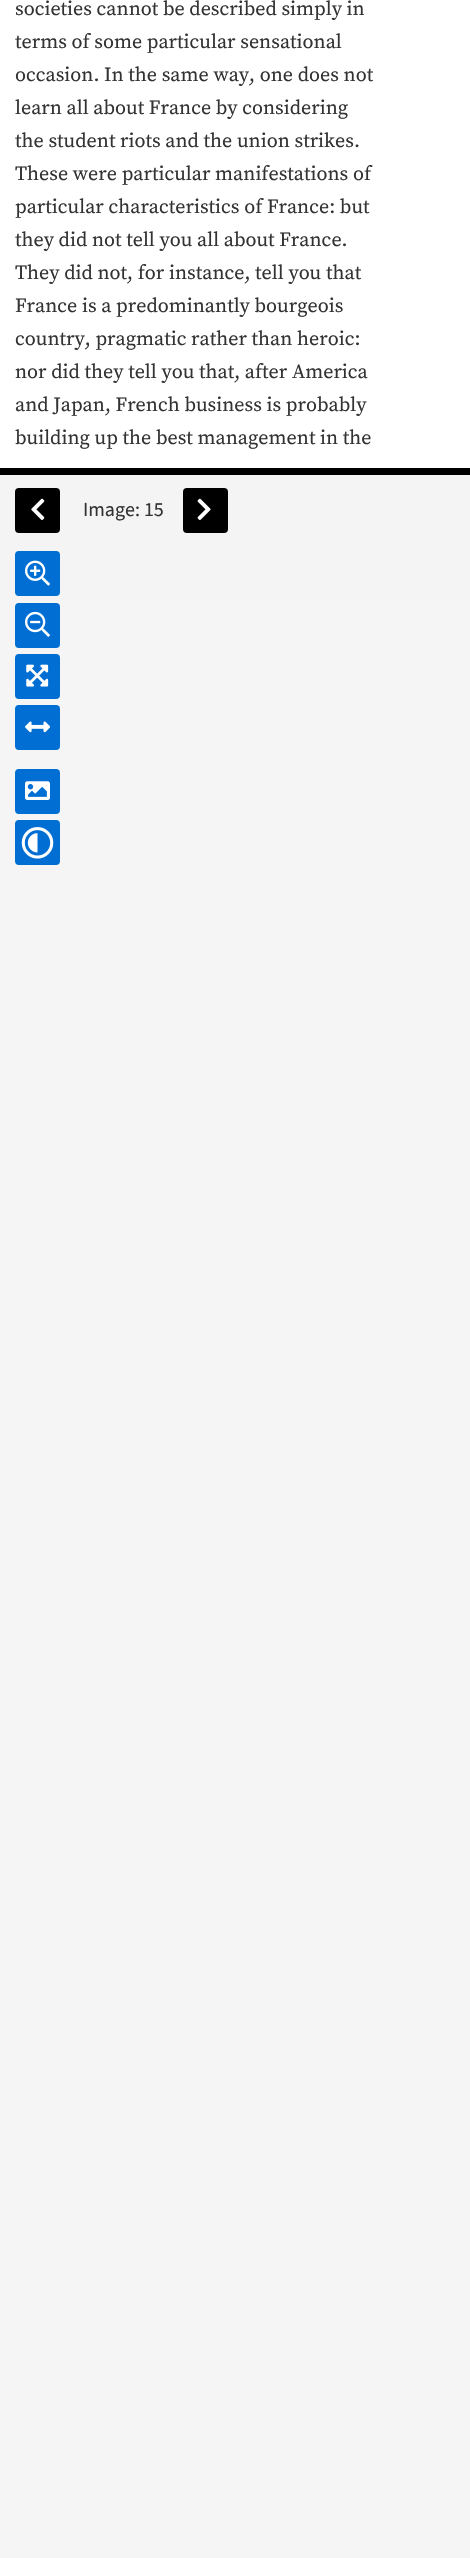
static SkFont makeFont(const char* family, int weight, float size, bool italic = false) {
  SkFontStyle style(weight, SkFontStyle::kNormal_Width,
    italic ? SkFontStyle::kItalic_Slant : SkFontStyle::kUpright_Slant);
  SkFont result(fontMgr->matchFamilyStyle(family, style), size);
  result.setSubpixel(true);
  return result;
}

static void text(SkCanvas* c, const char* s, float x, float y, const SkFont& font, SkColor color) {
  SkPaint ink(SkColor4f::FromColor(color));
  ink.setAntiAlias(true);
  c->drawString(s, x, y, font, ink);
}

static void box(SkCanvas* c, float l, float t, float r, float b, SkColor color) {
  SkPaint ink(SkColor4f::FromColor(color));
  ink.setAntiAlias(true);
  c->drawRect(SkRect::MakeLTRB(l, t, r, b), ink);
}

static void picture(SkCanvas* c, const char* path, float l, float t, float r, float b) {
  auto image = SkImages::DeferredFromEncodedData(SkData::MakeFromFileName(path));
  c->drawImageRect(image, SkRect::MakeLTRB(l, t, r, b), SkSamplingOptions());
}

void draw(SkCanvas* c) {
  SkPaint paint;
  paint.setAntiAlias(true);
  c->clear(0xffffffff);
  SkFont face1 = makeFont("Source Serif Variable", 400, 20);
  text(c, "societies cannot be described simply in", 15, 15, face1, 0xff333333);
  text(c, "terms of some particular sensational", 15, 48, face1, 0xff333333);
  text(c, "occasion. In the same way, one does not", 15, 81, face1, 0xff333333);
  text(c, "learn all about France by considering", 15, 114, face1, 0xff333333);
  text(c, "the student riots and the union strikes.", 15, 147, face1, 0xff333333);
  text(c, "These were particular manifestations of", 15, 180, face1, 0xff333333);
  text(c, "particular characteristics of France: but", 15, 213, face1, 0xff333333);
  text(c, "they did not tell you all about France.", 15, 246, face1, 0xff333333);
  text(c, "They did not, for instance, tell you that", 15, 279, face1, 0xff333333);
  text(c, "France is a predominantly bourgeois", 15, 312, face1, 0xff333333);
  text(c, "country, pragmatic rather than heroic:", 15, 345, face1, 0xff333333);
  text(c, "nor did they tell you that, after America", 15, 378, face1, 0xff333333);
  text(c, "and Japan, French business is probably", 15, 411, face1, 0xff333333);
  text(c, "building up the best management in the", 15, 444, face1, 0xff333333);
  box(c, 0, 468, 470, 475, 0xff000000);
  box(c, 0, 475, 470, 600, 0xfff4f4f4);
  paint.setColor(0xff000000);
  c->drawRoundRect(SkRect::MakeLTRB(16.5f, 489.5f, 58.5f, 531.5f), 2.5f, 2.5f, paint);
  paint.setStyle(SkPaint::kStroke_Style);
  paint.setStrokeWidth(3);
  c->drawRoundRect(SkRect::MakeLTRB(16.5f, 489.5f, 58.5f, 531.5f), 2.5f, 2.5f, paint);
  picture(c, "img_01.png", 31, 498, 45, 520);
  SkFont face2 = makeFont("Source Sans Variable", 400, 20);
  text(c, "Image: 15", 83, 516, face2, 0xff333333);
  paint.setStyle(SkPaint::kFill_Style);
  c->drawRoundRect(SkRect::MakeLTRB(184.5f, 489.5f, 226.5f, 531.5f), 2.5f, 2.5f, paint);
  paint.setStyle(SkPaint::kStroke_Style);
  c->drawRoundRect(SkRect::MakeLTRB(184.5f, 489.5f, 226.5f, 531.5f), 2.5f, 2.5f, paint);
  picture(c, "img_02.png", 197, 498, 211, 520);
  paint.setStyle(SkPaint::kFill_Style);
  paint.setColor(0xff016ed3);
  c->drawRoundRect(SkRect::MakeLTRB(16.5f, 552.5f, 58.5f, 594.5f), 2.5f, 2.5f, paint);
  paint.setStyle(SkPaint::kStroke_Style);
  c->drawRoundRect(SkRect::MakeLTRB(16.5f, 552.5f, 58.5f, 594.5f), 2.5f, 2.5f, paint);
  picture(c, "img_03.png", 25, 560, 50, 586);
  box(c, 0, 600, 470, 2558, 0xfff5f5f5);
  paint.setStyle(SkPaint::kFill_Style);
  c->drawRoundRect(SkRect::MakeLTRB(16.5f, 604.5f, 58.5f, 646.5f), 2.5f, 2.5f, paint);
  paint.setStyle(SkPaint::kStroke_Style);
  c->drawRoundRect(SkRect::MakeLTRB(16.5f, 604.5f, 58.5f, 646.5f), 2.5f, 2.5f, paint);
  picture(c, "img_04.png", 25, 611, 50, 637);
  paint.setStyle(SkPaint::kFill_Style);
  c->drawRoundRect(SkRect::MakeLTRB(16.5f, 655.5f, 58.5f, 697.5f), 2.5f, 2.5f, paint);
  paint.setStyle(SkPaint::kStroke_Style);
  c->drawRoundRect(SkRect::MakeLTRB(16.5f, 655.5f, 58.5f, 697.5f), 2.5f, 2.5f, paint);
  picture(c, "img_05.png", 26, 664, 49, 687);
  paint.setStyle(SkPaint::kFill_Style);
  c->drawRoundRect(SkRect::MakeLTRB(16.5f, 706.5f, 58.5f, 748.5f), 2.5f, 2.5f, paint);
  paint.setStyle(SkPaint::kStroke_Style);
  c->drawRoundRect(SkRect::MakeLTRB(16.5f, 706.5f, 58.5f, 748.5f), 2.5f, 2.5f, paint);
  picture(c, "img_06.png", 25, 721, 50, 733);
  paint.setStyle(SkPaint::kFill_Style);
  c->drawRoundRect(SkRect::MakeLTRB(16.5f, 770.5f, 58.5f, 812.5f), 2.5f, 2.5f, paint);
  paint.setStyle(SkPaint::kStroke_Style);
  c->drawRoundRect(SkRect::MakeLTRB(16.5f, 770.5f, 58.5f, 812.5f), 2.5f, 2.5f, paint);
  picture(c, "img_07.png", 25, 781, 50, 800);
  paint.setStyle(SkPaint::kFill_Style);
  c->drawRoundRect(SkRect::MakeLTRB(16.5f, 821.5f, 58.5f, 863.5f), 2.5f, 2.5f, paint);
  paint.setStyle(SkPaint::kStroke_Style);
  c->drawRoundRect(SkRect::MakeLTRB(16.5f, 821.5f, 58.5f, 863.5f), 2.5f, 2.5f, paint);
  picture(c, "img_08.png", 21, 827, 54, 859);
}
